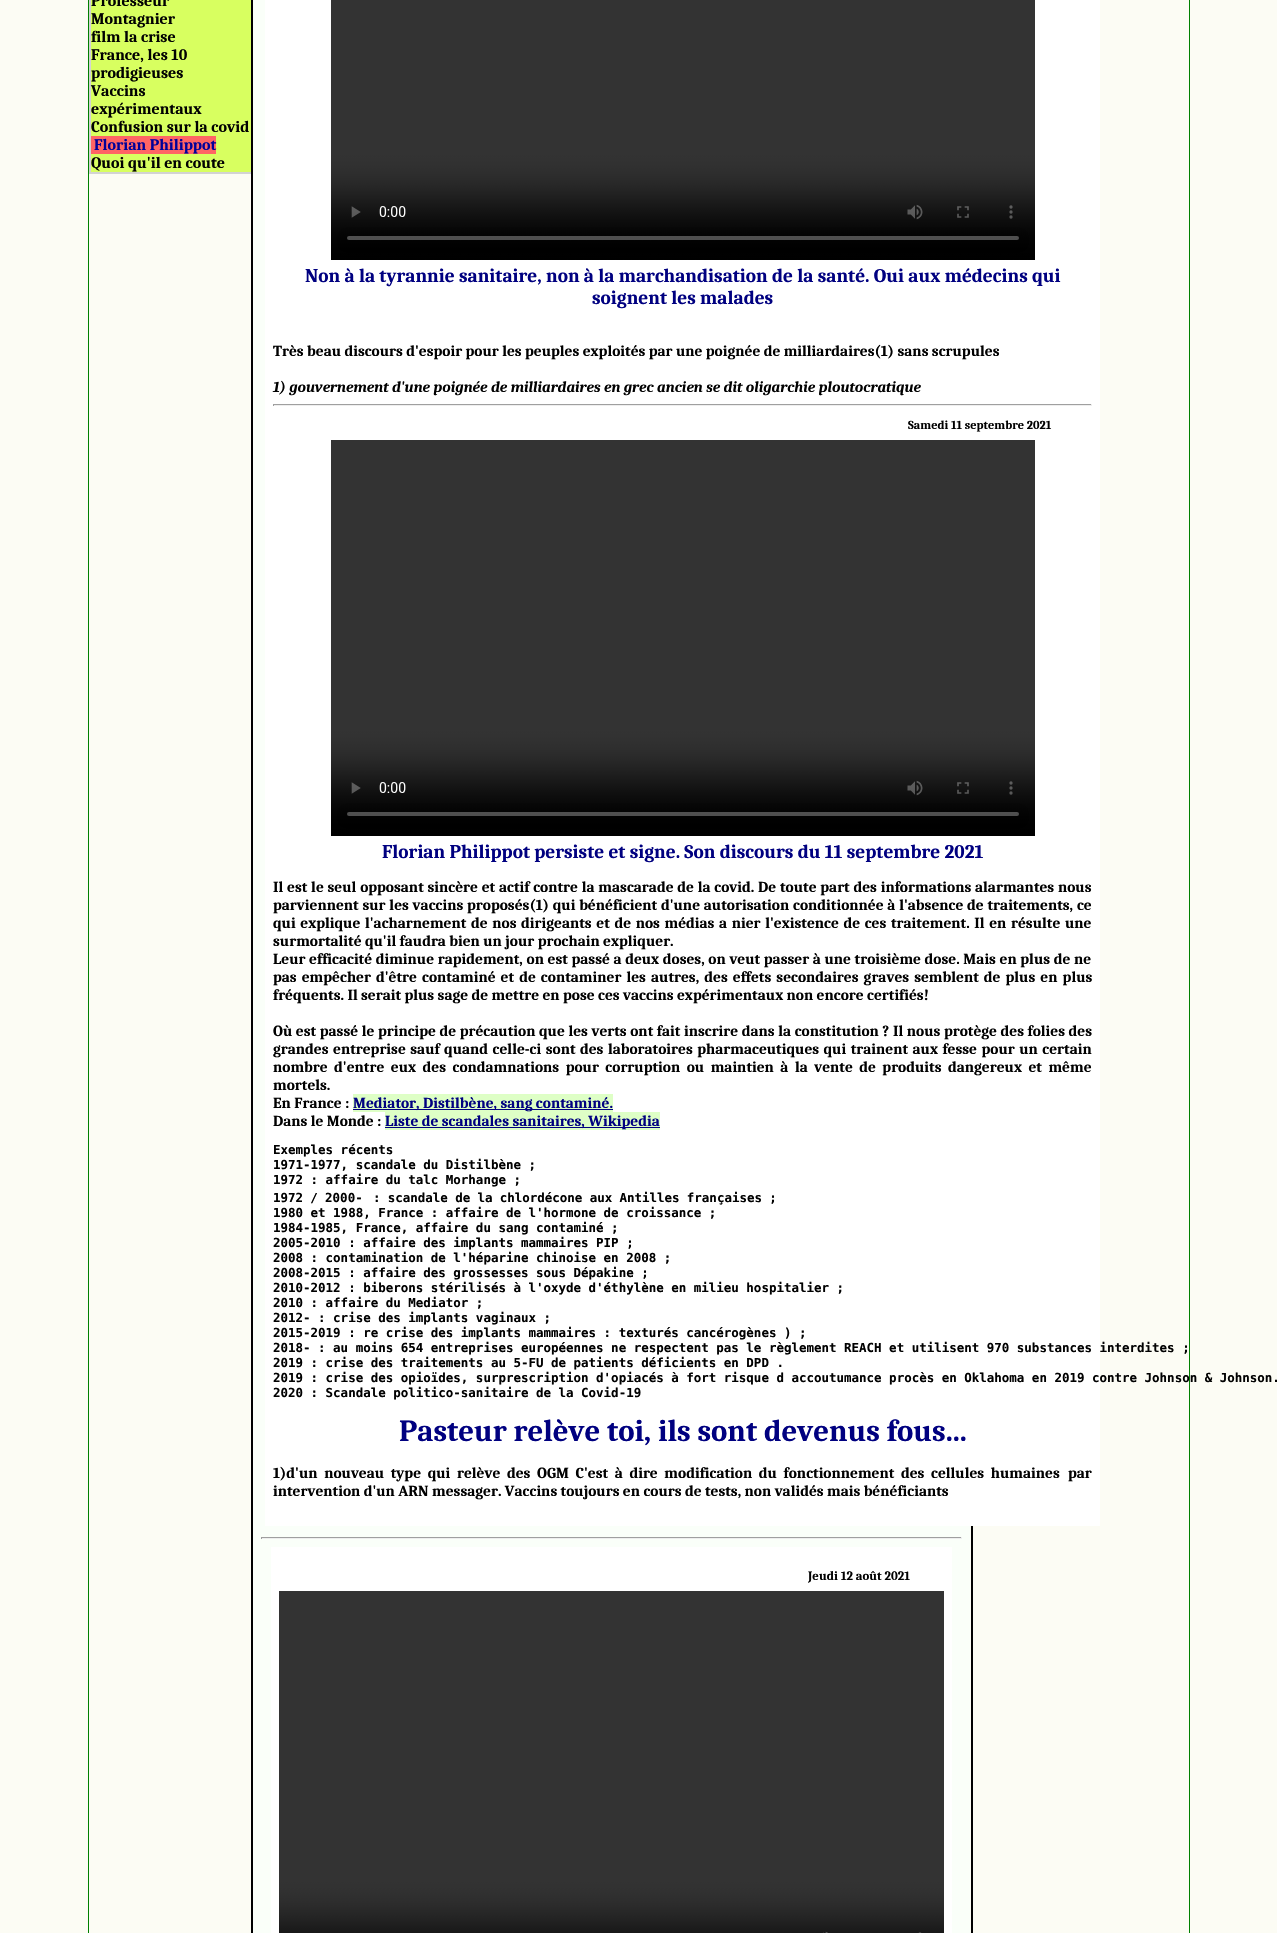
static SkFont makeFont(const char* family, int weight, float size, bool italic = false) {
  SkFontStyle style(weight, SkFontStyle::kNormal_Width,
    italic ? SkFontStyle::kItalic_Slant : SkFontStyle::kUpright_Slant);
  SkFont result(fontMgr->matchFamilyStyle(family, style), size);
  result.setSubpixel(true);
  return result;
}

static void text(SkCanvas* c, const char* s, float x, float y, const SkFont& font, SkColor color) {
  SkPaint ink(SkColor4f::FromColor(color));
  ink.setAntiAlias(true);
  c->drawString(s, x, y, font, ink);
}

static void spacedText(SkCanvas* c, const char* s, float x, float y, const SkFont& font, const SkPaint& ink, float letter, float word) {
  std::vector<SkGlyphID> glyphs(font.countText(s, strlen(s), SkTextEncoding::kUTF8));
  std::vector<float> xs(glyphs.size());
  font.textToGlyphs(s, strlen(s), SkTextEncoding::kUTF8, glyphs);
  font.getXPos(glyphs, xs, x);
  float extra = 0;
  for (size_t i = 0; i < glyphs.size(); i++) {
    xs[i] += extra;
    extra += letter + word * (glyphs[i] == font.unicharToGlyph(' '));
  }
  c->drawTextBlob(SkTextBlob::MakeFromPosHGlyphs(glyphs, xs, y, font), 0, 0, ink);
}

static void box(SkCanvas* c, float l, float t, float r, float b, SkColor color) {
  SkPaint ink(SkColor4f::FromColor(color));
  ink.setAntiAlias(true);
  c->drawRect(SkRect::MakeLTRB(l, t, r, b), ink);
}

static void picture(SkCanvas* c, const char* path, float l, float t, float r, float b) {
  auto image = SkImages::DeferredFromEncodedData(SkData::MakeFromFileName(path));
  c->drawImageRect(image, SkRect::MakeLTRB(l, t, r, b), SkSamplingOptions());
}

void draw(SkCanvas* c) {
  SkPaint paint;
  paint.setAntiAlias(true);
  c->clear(0xfffcfcf4);
  paint.setStyle(SkPaint::kStroke_Style);
  paint.setStrokeWidth(1);
  paint.setColor(0xff008000);
  c->drawRect(SkRect::MakeLTRB(88.5f, -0.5f, 1189.5f, 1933.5f), paint);
  paint.setColor(0xffd3d3d3);
  c->drawRect(SkRect::MakeLTRB(89.5f, -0.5f, 250.5f, 173.5f), paint);
  c->drawRect(SkRect::MakeLTRB(90.5f, -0.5f, 251.5f, 172.5f), paint);
  box(c, 91, 0, 251, 172, 0xffd8ff60);
  SkFont face1 = makeFont("Caladea", 700, 16);
  text(c, "Professeur", 91, 6, face1, 0xff010101);
  text(c, "Montagnier", 91, 24, face1, 0xff010101);
  text(c, "film la crise", 91, 42, face1, 0xff010101);
  text(c, "France, les 10", 91, 60, face1, 0xff010101);
  text(c, "prodigieuses", 91, 78, face1, 0xff010101);
  text(c, "Vaccins", 91, 96, face1, 0xff010101);
  text(c, "expérimentaux", 91, 114, face1, 0xff010101);
  text(c, "Confusion sur la covid", 91, 132, face1, 0xff010101);
  box(c, 91, 136, 216, 154, 0xffff6464);
  text(c, "Florian Philippot", 94, 150, face1, 0xff000099);
  text(c, "Quoi qu'il en coute", 91, 168, face1, 0xff010101);
  paint.setColor(0xff000000);
  c->drawRect(SkRect::MakeLTRB(251.5f, -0.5f, 972.5f, 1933.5f), paint);
  c->drawRect(SkRect::MakeLTRB(252.5f, -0.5f, 971.5f, 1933.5f), paint);
  box(c, 253, 0, 970, 1933, 0xfffafff9);
  box(c, 265, 0, 1100, 1526, 0xffffffff);
  picture(c, "img_01.png", 331, 0, 1035, 260);
  SkFont face2 = makeFont("Caladea", 700, 19.35f);
  text(c, "Non à la tyrannie sanitaire, non à la marchandisation de la santé. Oui aux médecins qui", 305, 282, face2, 0xff000080);
  text(c, "soignent les malades", 592, 304, face2, 0xff000080);
  SkFont face3 = makeFont("Caladea", 700, 15.35f);
  text(c, "Très beau discours d'espoir pour les peuples exploités par une poignée de milliardaires(1) sans scrupules", 273, 356, face3, 0xff010101);
  SkFont face4 = makeFont("Caladea", 700, 15.35f, true);
  text(c, "1) gouvernement d'une poignée de milliardaires en grec ancien se dit oligarchie ploutocratique", 273, 392, face4, 0xff010101);
  box(c, 273, 404, 1092, 405, 0xff9f9f9f);
  box(c, 1091, 404, 1092, 406, 0xffeeeeee);
  box(c, 273, 405, 1092, 406, 0xffeeeeee);
  box(c, 273, 404, 274, 406, 0xff9f9f9f);
  SkFont face5 = makeFont("Caladea", 700, 12.25f);
  text(c, "Samedi 11 septembre 2021", 908, 429, face5, 0xff010101);
  picture(c, "img_02.png", 331, 440, 1035, 836);
  text(c, "Florian Philippot persiste et signe. Son discours du 11 septembre 2021", 382, 858, face2, 0xff000080);
  paint.setStyle(SkPaint::kFill_Style);
  paint.setColor(0xff010101);
  spacedText(c, "Il est le seul opposant sincère et actif contre la mascarade de la covid. De toute part des informations alarmantes nous", 273, 892, face3, paint, 0, 0.4f);
  spacedText(c, "parviennent sur les vaccins proposés(1) qui bénéficient d'une autorisation conditionnée à l'absence de traitements, ce", 273, 910, face3, paint, 0, 0.4f);
  spacedText(c, "qui explique l'acharnement de nos dirigeants et de nos médias a nier l'existence de ces traitement. Il en résulte une", 273, 928, face3, paint, 0, 1.25f);
  text(c, "surmortalité qu'il faudra bien un jour prochain expliquer.", 273, 946, face3, 0xff010101);
  spacedText(c, "Leur efficacité diminue rapidement, on est passé a deux doses, on veut passer à une troisième dose. Mais en plus de ne", 273, 964, face3, paint, 0, 0.25f);
  spacedText(c, "pas empêcher d'être contaminé et de contaminer les autres, des effets secondaires graves semblent de plus en plus", 273, 982, face3, paint, 0, 1.7f);
  text(c, "fréquents. Il serait plus sage de mettre en pose ces vaccins expérimentaux non encore certifiés!", 273, 1000, face3, 0xff010101);
  spacedText(c, "Où est passé le principe de précaution que les verts ont fait inscrire dans la constitution ? Il nous protège des folies des", 273, 1036, face3, paint, 0, 0.2f);
  spacedText(c, "grandes entreprise sauf quand celle-ci sont des laboratoires pharmaceutiques qui trainent aux fesse pour un certain", 273, 1054, face3, paint, 0, 1.1f);
  spacedText(c, "nombre d'entre eux des condamnations pour corruption ou maintien à la vente de produits dangereux et même", 273, 1072, face3, paint, 0, 3.1f);
  text(c, "mortels.", 273, 1090, face3, 0xff010101);
  text(c, "En France :", 273, 1108, face3, 0xff010101);
  box(c, 353, 1094, 613, 1112, 0xffdeffc6);
  box(c, 353, 1109, 613, 1110, 0xff000080);
  text(c, "Mediator, Distilbène, sang contaminé.", 353, 1108, face3, 0xff000080);
  text(c, "Dans le Monde :", 273, 1126, face3, 0xff010101);
  box(c, 385, 1112, 660, 1130, 0xffdeffc6);
  box(c, 385, 1127, 660, 1128, 0xff000080);
  text(c, "Liste de scandales sanitaires, Wikipedia", 385, 1126, face3, 0xff000080);
  SkFont face6 = makeFont("DejaVu Sans Mono", 700, 12.48f);
  text(c, "Exemples récents", 273, 1154, face6, 0xff010101);
  text(c, "1971-1977, scandale du Distilbène ;", 273, 1169, face6, 0xff010101);
  text(c, "1972 : affaire du talc Morhange ;", 273, 1184, face6, 0xff010101);
  spacedText(c, "1972 / 2000-", 273, 1202, face6, paint, 0, -0.25f);
  spacedText(c, ": scandale de la chlordécone aux Antilles françaises ;", 373, 1202, face6, paint, 0, -0.25f);
  text(c, "1980 et 1988, France : affaire de l'hormone de croissance ;", 273, 1217, face6, 0xff010101);
  text(c, "1984-1985, France, affaire du sang contaminé ;", 273, 1232, face6, 0xff010101);
  text(c, "2005-2010 : affaire des implants mammaires PIP ;", 273, 1247, face6, 0xff010101);
  text(c, "2008 : contamination de l'héparine chinoise en 2008 ;", 273, 1262, face6, 0xff010101);
  text(c, "2008-2015 : affaire des grossesses sous Dépakine ;", 273, 1277, face6, 0xff010101);
  text(c, "2010-2012 : biberons stérilisés à l'oxyde d'éthylène en milieu hospitalier ;", 273, 1292, face6, 0xff010101);
  text(c, "2010 : affaire du Mediator ;", 273, 1307, face6, 0xff010101);
  text(c, "2012- : crise des implants vaginaux ;", 273, 1322, face6, 0xff010101);
  text(c, "2015-2019 : re crise des implants mammaires : texturés cancérogènes ) ;", 273, 1337, face6, 0xff010101);
  text(c, "2018- : au moins 654 entreprises européennes ne respectent pas le règlement REACH et utilisent 970 substances interdites ;", 273, 1352, face6, 0xff010101);
  text(c, "2019 : crise des traitements au 5-FU de patients déficients en DPD .", 273, 1367, face6, 0xff010101);
  text(c, "2019 : crise des opioïdes, surprescription d'opiacés à fort risque d accoutumance procès en Oklahoma en 2019 contre Johnson & Johnson.", 273, 1382, face6, 0xff010101);
  text(c, "2020 : Scandale politico-sanitaire de la Covid-19", 273, 1397, face6, 0xff010101);
  SkFont face7 = makeFont("Caladea", 700, 30.75f);
  text(c, "Pasteur relève toi, ils sont devenus fous...", 399, 1441, face7, 0xff000080);
  spacedText(c, "1)d'un nouveau type qui relève des OGM C'est à dire modification du fonctionnement des cellules humaines", 273, 1478, face3, paint, 0, 3.25f);
  text(c, "par", 1068, 1478, face3, 0xff010101);
  text(c, "intervention d'un ARN messager. Vaccins toujours en cours de tests, non validés mais bénéficiants", 273, 1496, face3, 0xff010101);
  box(c, 261, 1537, 962, 1538, 0xff9f9f9f);
  box(c, 961, 1537, 962, 1539, 0xffeeeeee);
  box(c, 261, 1538, 962, 1539, 0xffeeeeee);
  box(c, 261, 1537, 262, 1539, 0xff9f9f9f);
  box(c, 271, 1547, 952, 1933, 0xffffffff);
  SkFont face8 = makeFont("Caladea", 700, 12.75f);
  text(c, "Jeudi 12 août 2021", 808, 1580, face8, 0xff010101);
  picture(c, "img_03.png", 279, 1591, 944, 1933);
}
